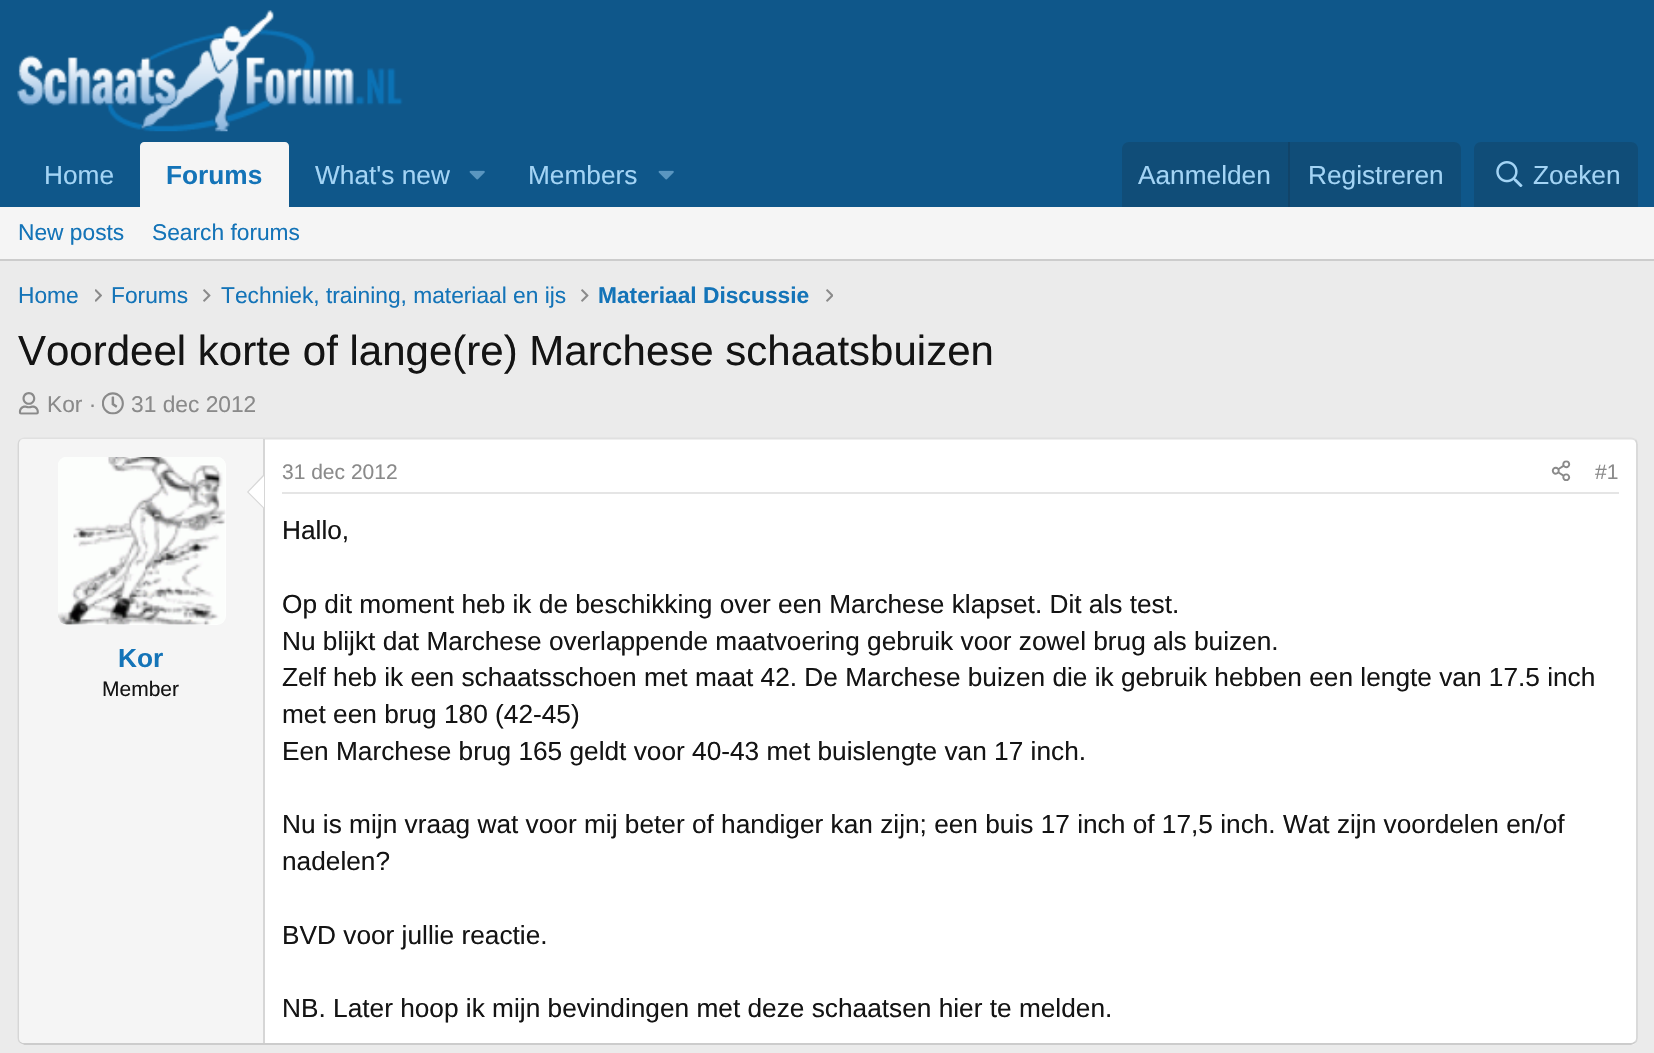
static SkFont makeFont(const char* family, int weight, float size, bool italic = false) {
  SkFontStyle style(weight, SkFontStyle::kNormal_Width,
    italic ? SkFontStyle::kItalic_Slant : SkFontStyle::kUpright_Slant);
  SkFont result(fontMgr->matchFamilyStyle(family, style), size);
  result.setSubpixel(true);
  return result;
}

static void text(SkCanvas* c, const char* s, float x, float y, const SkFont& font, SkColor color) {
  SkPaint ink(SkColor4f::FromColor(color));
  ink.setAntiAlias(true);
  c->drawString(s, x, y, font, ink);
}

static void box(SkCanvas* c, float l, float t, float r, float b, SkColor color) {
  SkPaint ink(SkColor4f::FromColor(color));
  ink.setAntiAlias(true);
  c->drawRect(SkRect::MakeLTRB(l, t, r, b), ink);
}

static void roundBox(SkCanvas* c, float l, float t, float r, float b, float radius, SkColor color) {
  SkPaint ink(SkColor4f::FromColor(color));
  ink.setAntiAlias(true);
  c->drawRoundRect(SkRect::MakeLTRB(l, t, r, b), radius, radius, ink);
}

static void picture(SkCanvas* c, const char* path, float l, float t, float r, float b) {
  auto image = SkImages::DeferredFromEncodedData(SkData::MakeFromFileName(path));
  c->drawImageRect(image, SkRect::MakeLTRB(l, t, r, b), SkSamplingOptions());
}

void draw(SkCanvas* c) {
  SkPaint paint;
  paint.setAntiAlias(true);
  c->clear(0xffebebeb);
  box(c, 0, 0, 1654, 207, 0xff0f578a);
  picture(c, "img_01.png", 17, 10, 403, 132);
  SkFont face1 = makeFont("Liberation Sans", 400, 26.25f);
  text(c, "Home", 44, 184, face1, 0xffa3d4f5);
  paint.setColor(0xfff5f5f5);
  c->drawPath(SkPathBuilder().moveTo(144, 142).lineTo(285, 142).cubicTo(287, 142, 289, 144, 289, 146).lineTo(289, 207).lineTo(140, 207).lineTo(140, 146).cubicTo(140, 144, 142, 142, 144, 142).close().detach(), paint);
  SkFont face2 = makeFont("Liberation Sans", 700, 26.25f);
  text(c, "Forums", 166, 184, face2, 0xff1474b8);
  text(c, "What's new", 315, 184, face1, 0xffa3d4f5);
  picture(c, "img_02.png", 469, 170, 485, 180);
  text(c, "Members", 528, 184, face1, 0xffa3d4f5);
  picture(c, "img_02.png", 658, 170, 674, 180);
  paint.setColor(0xff104d78);
  c->drawPath(SkPathBuilder().moveTo(1129, 142).lineTo(1454, 142).cubicTo(1458, 142, 1461, 145, 1461, 149).lineTo(1461, 207).lineTo(1122, 207).lineTo(1122, 149).cubicTo(1122, 145, 1125, 142, 1129, 142).close().detach(), paint);
  text(c, "Aanmelden", 1138, 184, face1, 0xffa3d4f5);
  box(c, 1288, 142, 1290, 207, 0xff114469);
  text(c, "Registreren", 1308, 184, face1, 0xffa3d4f5);
  c->drawPath(SkPathBuilder().moveTo(1481, 142).lineTo(1631, 142).cubicTo(1635, 142, 1638, 145, 1638, 149).lineTo(1638, 207).lineTo(1474, 207).lineTo(1474, 149).cubicTo(1474, 145, 1477, 142, 1481, 142).close().detach(), paint);
  picture(c, "img_03.png", 1496, 161, 1523, 187);
  text(c, "Zoeken", 1533, 184, face1, 0xffa3d4f5);
  box(c, 0, 207, 1654, 259, 0xfff5f5f5);
  box(c, 0, 259, 1654, 261, 0xffcccccc);
  SkFont face3 = makeFont("Liberation Sans", 400, 22.75f);
  text(c, "New posts", 18, 240, face3, 0xff1474b8);
  text(c, "Search forums", 152, 240, face3, 0xff1474b8);
  text(c, "Home", 18, 303, face3, 0xff1474b8);
  picture(c, "img_04.png", 95, 289, 102, 302);
  text(c, "Forums", 111, 303, face3, 0xff1474b8);
  picture(c, "img_05.png", 203, 289, 211, 302);
  text(c, "Techniek, training, materiaal en ijs", 221, 303, face3, 0xff1474b8);
  picture(c, "img_05.png", 581, 289, 589, 302);
  SkFont face4 = makeFont("Liberation Sans", 700, 22.75f);
  text(c, "Materiaal Discussie", 598, 303, face4, 0xff1474b8);
  picture(c, "img_06.png", 826, 289, 833, 302);
  SkFont face5 = makeFont("Liberation Sans", 400, 42);
  text(c, "Voordeel korte of lange(re) Marchese schaatsbuizen", 18, 365, face5, 0xff141414);
  picture(c, "img_07.png", 18, 392, 39, 415);
  text(c, "Kor ·", 47, 412, face3, 0xff8a8a8a);
  picture(c, "img_08.png", 102, 392, 124, 415);
  text(c, "31 dec 2012", 131, 412, face3, 0xff8a8a8a);
  roundBox(c, 18, 438, 1638, 1045, 7, 0xffffffff);
  paint.setStyle(SkPaint::kStroke_Style);
  paint.setStrokeWidth(1.8f);
  paint.setColor(0xffe0e0e0);
  c->drawPath(SkPathBuilder().moveTo(20, 440).cubicTo(21.5f, 439, 23, 438.5f, 24.5f, 438.5f).lineTo(1631, 438.5f).cubicTo(1632.5f, 438.5f, 1634, 439, 1635.5f, 440).detach(), paint);
  paint.setColor(0xffd6d6d6);
  c->drawPath(SkPathBuilder().moveTo(1635.5f, 440).cubicTo(1636.5f, 441.5f, 1637, 443, 1637, 444.5f).lineTo(1637, 1038).cubicTo(1637, 1039.5f, 1636.5f, 1041, 1635.5f, 1042).detach(), paint);
  paint.setColor(0xffcccccc);
  c->drawPath(SkPathBuilder().moveTo(1635.5f, 1042).cubicTo(1634, 1043, 1632.5f, 1044, 1631, 1044).lineTo(24.5f, 1044).cubicTo(23, 1044, 21.5f, 1043, 20, 1042).detach(), paint);
  paint.setColor(0xffd6d6d6);
  c->drawPath(SkPathBuilder().moveTo(20, 1042).cubicTo(19, 1041, 18.5f, 1039.5f, 18.5f, 1038).lineTo(18.5f, 444.5f).cubicTo(18.5f, 443, 19, 441.5f, 20, 440).detach(), paint);
  paint.setStyle(SkPaint::kFill_Style);
  paint.setColor(0xfff5f5f5);
  c->drawPath(SkPathBuilder().moveTo(24, 439).lineTo(264, 439).lineTo(264, 1043).lineTo(24, 1043).cubicTo(21, 1043, 19, 1041, 19, 1038).lineTo(19, 444).cubicTo(19, 441, 21, 439, 24, 439).close().detach(), paint);
  box(c, 263, 439, 265, 1043, 0xffd6d6d6);
  roundBox(c, 58, 457, 226, 625, 9, 0xffffffff);
  picture(c, "img_09.png", 58, 457, 226, 625);
  paint.setColor(0xffd6d6d6);
  c->drawPath(SkPathBuilder().moveTo(264, 474).lineTo(264, 509).lineTo(247, 492).close().detach(), paint);
  paint.setColor(0xffffffff);
  c->drawPath(SkPathBuilder().moveTo(264, 476).lineTo(264, 507.5f).lineTo(248.5f, 492).close().detach(), paint);
  text(c, "Kor", 118, 667, face2, 0xff1474b8);
  SkFont face6 = makeFont("Liberation Sans", 400, 21);
  text(c, "Member", 102, 696, face6, 0xff141414);
  box(c, 282, 492, 1619, 494, 0xffe5e5e5);
  text(c, "31 dec 2012", 282, 479, face6, 0xff8a8a8a);
  picture(c, "img_10.png", 1551, 460, 1571, 481);
  text(c, "#1", 1595, 479, face6, 0xff8a8a8a);
  text(c, "Hallo,", 282, 539, face1, 0xff141414);
  text(c, "Op dit moment heb ik de beschikking over een Marchese klapset. Dit als test.", 282, 613, face1, 0xff141414);
  text(c, "Nu blijkt dat Marchese overlappende maatvoering gebruik voor zowel brug als buizen.", 282, 650, face1, 0xff141414);
  text(c, "Zelf heb ik een schaatsschoen met maat 42. De Marchese buizen die ik gebruik hebben een lengte van 17.5 inch", 282, 686, face1, 0xff141414);
  text(c, "met een brug 180 (42-45)", 282, 723, face1, 0xff141414);
  text(c, "Een Marchese brug 165 geldt voor 40-43 met buislengte van 17 inch.", 282, 760, face1, 0xff141414);
  text(c, "Nu is mijn vraag wat voor mij beter of handiger kan zijn; een buis 17 inch of 17,5 inch. Wat zijn voordelen en/of", 282, 833, face1, 0xff141414);
  text(c, "nadelen?", 282, 870, face1, 0xff141414);
  text(c, "BVD voor jullie reactie.", 282, 944, face1, 0xff141414);
  text(c, "NB. Later hoop ik mijn bevindingen met deze schaatsen hier te melden.", 282, 1017, face1, 0xff141414);
}
